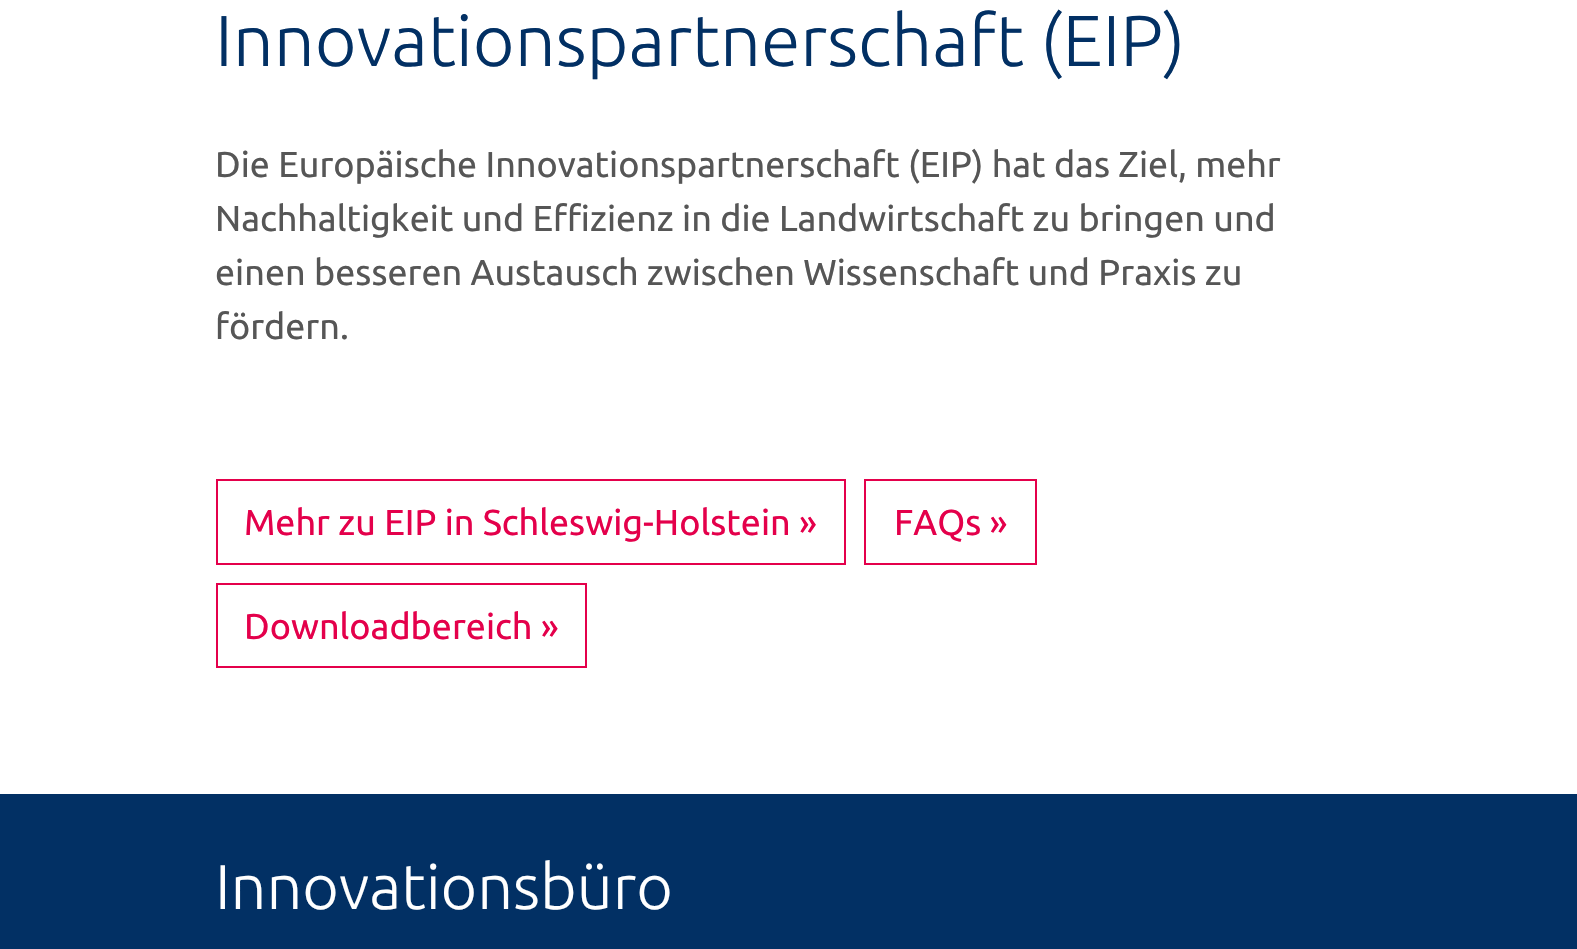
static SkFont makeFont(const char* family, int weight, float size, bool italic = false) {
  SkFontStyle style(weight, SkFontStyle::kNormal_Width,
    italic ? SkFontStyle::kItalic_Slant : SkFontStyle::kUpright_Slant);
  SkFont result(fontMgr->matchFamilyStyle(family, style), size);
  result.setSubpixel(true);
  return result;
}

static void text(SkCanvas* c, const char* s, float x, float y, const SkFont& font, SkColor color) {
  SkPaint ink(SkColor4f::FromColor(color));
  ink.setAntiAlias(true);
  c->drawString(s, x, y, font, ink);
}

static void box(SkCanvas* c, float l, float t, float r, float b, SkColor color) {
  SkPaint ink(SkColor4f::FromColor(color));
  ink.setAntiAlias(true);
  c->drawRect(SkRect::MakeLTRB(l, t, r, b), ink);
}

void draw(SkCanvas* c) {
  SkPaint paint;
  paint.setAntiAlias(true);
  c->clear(0xffffffff);
  SkFont face1 = makeFont("Ubuntu", 300, 72);
  text(c, "Innovationspartnerschaft (EIP)", 215, 66, face1, 0xff023064);
  SkFont face2 = makeFont("Ubuntu", 400, 36);
  text(c, "Die Europäische Innovationspartnerschaft (EIP) hat das Ziel, mehr", 215, 177, face2, 0xff565656);
  text(c, "Nachhaltigkeit und Effizienz in die Landwirtschaft zu bringen und", 215, 231, face2, 0xff565656);
  text(c, "einen besseren Austausch zwischen Wissenschaft und Praxis zu", 215, 285, face2, 0xff565656);
  text(c, "fördern.", 215, 339, face2, 0xff565656);
  paint.setStyle(SkPaint::kStroke_Style);
  paint.setStrokeWidth(2);
  paint.setColor(0xffe4004b);
  c->drawRect(SkRect::MakeLTRB(217, 480, 845, 564), paint);
  text(c, "Mehr zu EIP in Schleswig-Holstein »", 244, 535, face2, 0xffe4004b);
  c->drawRect(SkRect::MakeLTRB(865, 480, 1036, 564), paint);
  text(c, "FAQs »", 894, 535, face2, 0xffe4004b);
  c->drawRect(SkRect::MakeLTRB(217, 584, 586, 667), paint);
  text(c, "Downloadbereich »", 244, 639, face2, 0xffe4004b);
  box(c, 0, 794, 1577, 949, 0xff023064);
  SkFont face3 = makeFont("Ubuntu", 300, 63);
  text(c, "Innovationsbüro", 215, 909, face3, 0xffffffff);
}
